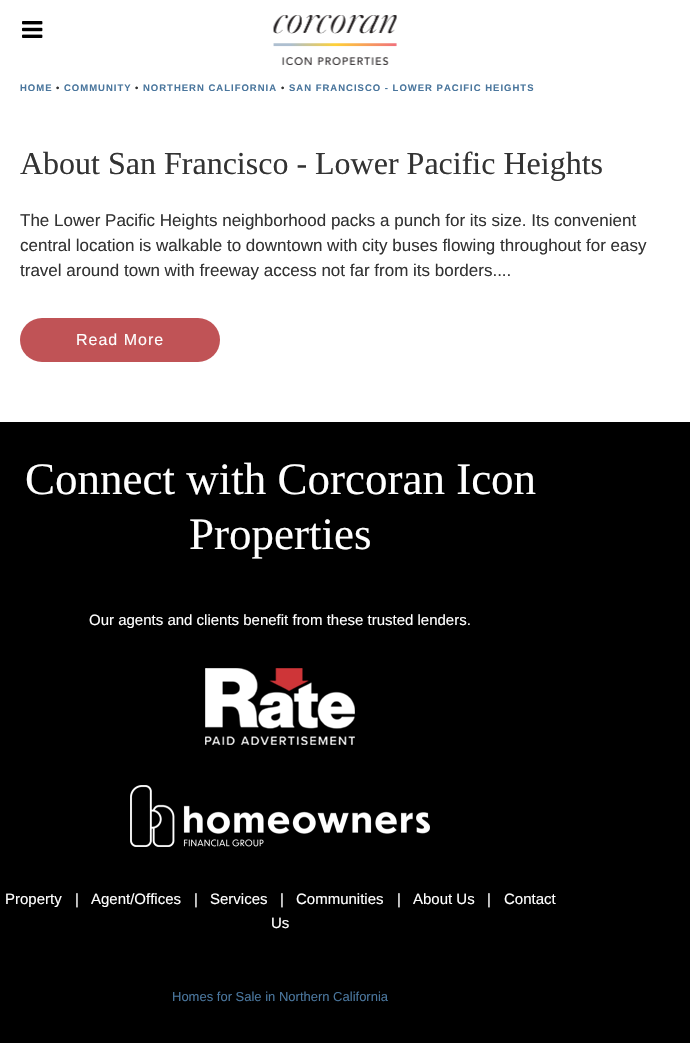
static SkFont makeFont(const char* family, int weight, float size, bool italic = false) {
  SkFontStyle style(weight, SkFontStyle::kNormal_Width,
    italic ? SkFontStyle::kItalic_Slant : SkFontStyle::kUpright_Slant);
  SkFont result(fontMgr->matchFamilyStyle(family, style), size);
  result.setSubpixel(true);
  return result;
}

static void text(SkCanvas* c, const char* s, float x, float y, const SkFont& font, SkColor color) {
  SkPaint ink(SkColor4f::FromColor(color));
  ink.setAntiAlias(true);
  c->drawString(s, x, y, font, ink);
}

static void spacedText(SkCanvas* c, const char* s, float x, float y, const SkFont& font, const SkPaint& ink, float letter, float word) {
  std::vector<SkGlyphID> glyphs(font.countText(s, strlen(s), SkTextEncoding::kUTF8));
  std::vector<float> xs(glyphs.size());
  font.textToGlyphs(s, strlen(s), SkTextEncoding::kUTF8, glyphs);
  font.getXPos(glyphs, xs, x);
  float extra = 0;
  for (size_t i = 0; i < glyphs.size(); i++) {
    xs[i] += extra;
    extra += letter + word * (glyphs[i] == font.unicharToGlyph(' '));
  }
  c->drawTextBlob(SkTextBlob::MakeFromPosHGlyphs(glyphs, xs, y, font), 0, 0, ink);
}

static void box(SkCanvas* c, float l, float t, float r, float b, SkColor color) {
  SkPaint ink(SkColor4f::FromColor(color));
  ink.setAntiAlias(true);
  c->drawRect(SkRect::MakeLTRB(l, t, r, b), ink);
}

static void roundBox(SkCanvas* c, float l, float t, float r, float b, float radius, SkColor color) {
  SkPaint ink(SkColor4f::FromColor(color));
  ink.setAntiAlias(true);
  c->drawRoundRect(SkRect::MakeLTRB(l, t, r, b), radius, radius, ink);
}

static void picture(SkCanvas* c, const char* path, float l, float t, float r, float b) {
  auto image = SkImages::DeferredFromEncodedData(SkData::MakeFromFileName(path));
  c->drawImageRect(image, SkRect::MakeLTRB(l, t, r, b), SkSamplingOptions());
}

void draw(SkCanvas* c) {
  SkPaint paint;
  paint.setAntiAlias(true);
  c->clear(0xffffffff);
  picture(c, "img_01.png", 22, 21, 43, 38);
  picture(c, "img_02.png", 273, 15, 397, 65);
  SkFont face1 = makeFont("Liberation Sans", 700, 9.5f);
  paint.setColor(0xff4a769d);
  spacedText(c, "HOME", 20, 91, face1, paint, 1, 0);
  paint.setColor(0xff333333);
  spacedText(c, "•", 56, 91, face1, paint, 1, 0);
  paint.setColor(0xff4a769d);
  spacedText(c, "COMMUNITY", 64, 91, face1, paint, 1, 0);
  paint.setColor(0xff333333);
  spacedText(c, "•", 135, 91, face1, paint, 1, 0);
  paint.setColor(0xff4a769d);
  spacedText(c, "NORTHERN CALIFORNIA", 143, 91, face1, paint, 1, 0);
  paint.setColor(0xff333333);
  spacedText(c, "•", 281, 91, face1, paint, 1, 0);
  paint.setColor(0xff4a769d);
  spacedText(c, "SAN FRANCISCO - LOWER PACIFIC HEIGHTS", 289, 91, face1, paint, 1, 0);
  SkFont face2 = makeFont("Liberation Serif", 400, 32);
  text(c, "About San Francisco - Lower Pacific Heights", 20, 174, face2, 0xff333333);
  SkFont face3 = makeFont("Liberation Sans", 400, 17);
  text(c, "The Lower Pacific Heights neighborhood packs a punch for its size. Its convenient", 20, 226, face3, 0xff333333);
  text(c, "central location is walkable to downtown with city buses flowing throughout for easy", 20, 251, face3, 0xff333333);
  text(c, "travel around town with freeway access not far from its borders....", 20, 276, face3, 0xff333333);
  roundBox(c, 20, 318, 220, 362, 22, 0xffc05356);
  SkFont face4 = makeFont("Liberation Sans", 400, 16);
  paint.setColor(0xffffffff);
  spacedText(c, "Read More", 76, 345, face4, paint, 1, 0);
  box(c, 0, 422, 690, 1043, 0xff000000);
  SkFont face5 = makeFont("Liberation Serif", 400, 45);
  text(c, "Connect with Corcoran Icon", 25, 494, face5, 0xffffffff);
  text(c, "Properties", 189, 549, face5, 0xffffffff);
  SkFont face6 = makeFont("Liberation Sans", 400, 15);
  text(c, "Our agents and clients benefit from these trusted lenders.", 89, 625, face6, 0xffffffff);
  picture(c, "img_03.png", 205, 668, 355, 745);
  picture(c, "img_04.png", 130, 785, 430, 847);
  text(c, "Property", 5, 904, face6, 0xffffffff);
  text(c, "|", 75, 904, face6, 0xffffffff);
  text(c, "Agent/Offices", 91, 904, face6, 0xffffffff);
  text(c, "|", 194, 904, face6, 0xffffffff);
  text(c, "Services", 210, 904, face6, 0xffffffff);
  text(c, "|", 280, 904, face6, 0xffffffff);
  text(c, "Communities", 296, 904, face6, 0xffffffff);
  text(c, "|", 397, 904, face6, 0xffffffff);
  text(c, "About Us", 413, 904, face6, 0xffffffff);
  text(c, "|", 487, 904, face6, 0xffffffff);
  text(c, "Contact", 504, 904, face6, 0xffffffff);
  text(c, "Us", 271, 928, face6, 0xffffffff);
  SkFont face7 = makeFont("Liberation Sans", 400, 13);
  text(c, "Homes for Sale in Northern California", 172, 1001, face7, 0xff4a769d);
}
